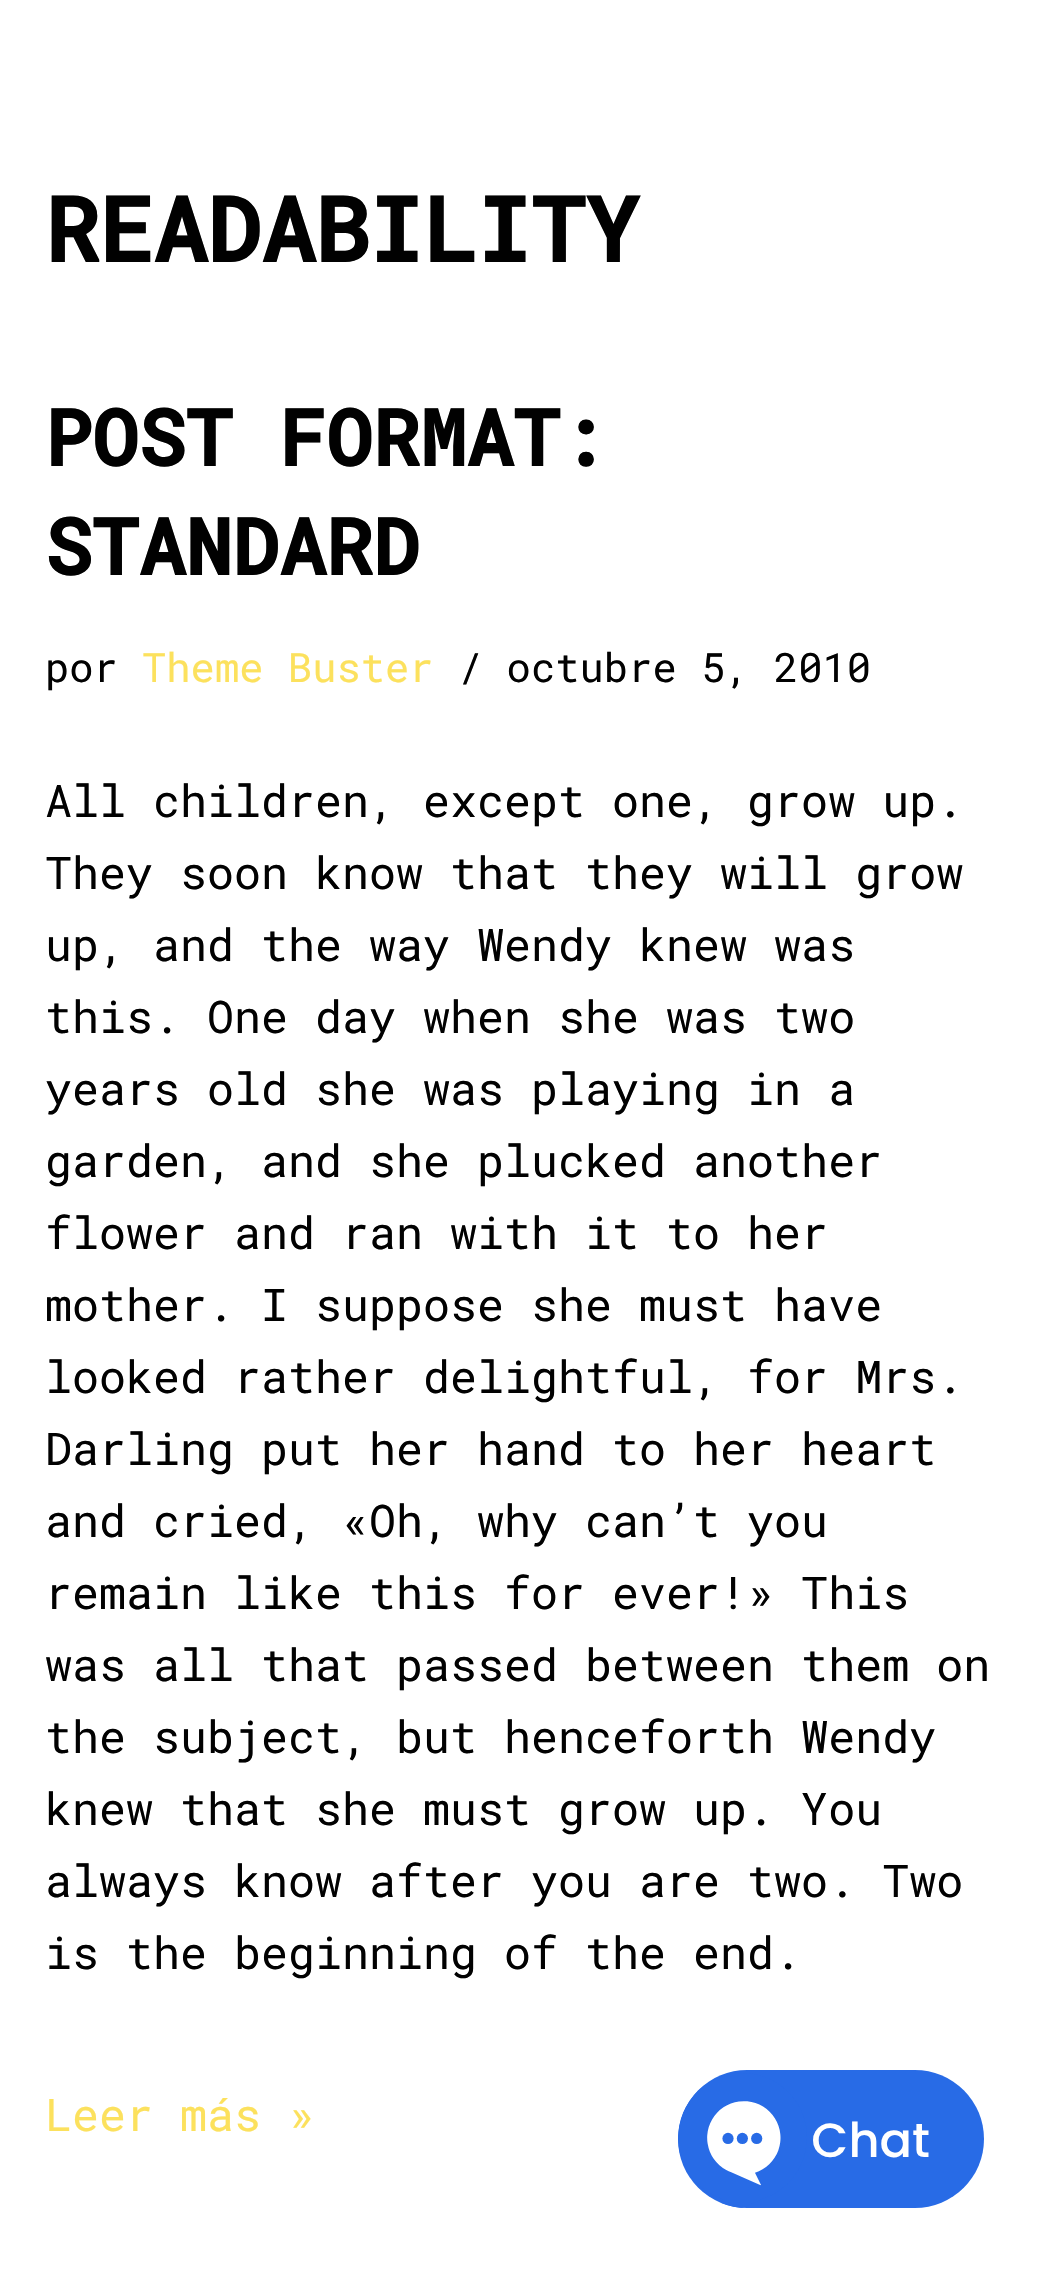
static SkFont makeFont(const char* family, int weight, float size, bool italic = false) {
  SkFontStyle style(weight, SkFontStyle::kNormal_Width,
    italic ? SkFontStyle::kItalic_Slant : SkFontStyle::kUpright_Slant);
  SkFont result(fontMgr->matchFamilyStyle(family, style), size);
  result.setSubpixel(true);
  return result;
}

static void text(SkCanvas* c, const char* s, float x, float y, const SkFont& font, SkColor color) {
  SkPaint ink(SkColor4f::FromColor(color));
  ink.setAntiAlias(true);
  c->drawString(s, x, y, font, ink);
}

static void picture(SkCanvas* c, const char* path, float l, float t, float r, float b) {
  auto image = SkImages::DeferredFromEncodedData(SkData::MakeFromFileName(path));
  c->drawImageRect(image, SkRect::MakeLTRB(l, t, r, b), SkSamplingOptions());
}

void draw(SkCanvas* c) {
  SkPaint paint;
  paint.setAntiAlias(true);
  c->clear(0xffffffff);
  SkFont face1 = makeFont("Roboto Mono", 700, 90);
  text(c, "READABILITY", 45, 262, face1, 0xff010101);
  SkFont face2 = makeFont("Roboto Mono", 700, 78);
  text(c, "POST FORMAT:", 45, 466, face2, 0xff010101);
  text(c, "STANDARD", 45, 575, face2, 0xff010101);
  SkFont face3 = makeFont("Roboto Mono", 400, 40.5f);
  text(c, "por", 45, 682, face3, 0xff010101);
  text(c, "Theme Buster", 142, 682, face3, 0xfffce15d);
  text(c, "/ octubre 5, 2010", 458, 682, face3, 0xff010101);
  SkFont face4 = makeFont("Roboto Mono", 400, 45);
  text(c, "All children, except one, grow up.", 45, 817, face4, 0xff010101);
  text(c, "They soon know that they will grow", 45, 889, face4, 0xff010101);
  text(c, "up, and the way Wendy knew was", 45, 961, face4, 0xff010101);
  text(c, "this. One day when she was two", 45, 1033, face4, 0xff010101);
  text(c, "years old she was playing in a", 45, 1105, face4, 0xff010101);
  text(c, "garden, and she plucked another", 45, 1177, face4, 0xff010101);
  text(c, "flower and ran with it to her", 45, 1249, face4, 0xff010101);
  text(c, "mother. I suppose she must have", 45, 1321, face4, 0xff010101);
  text(c, "looked rather delightful, for Mrs.", 45, 1393, face4, 0xff010101);
  text(c, "Darling put her hand to her heart", 45, 1465, face4, 0xff010101);
  text(c, "and cried, «Oh, why can’t you", 45, 1537, face4, 0xff010101);
  text(c, "remain like this for ever!» This", 45, 1609, face4, 0xff010101);
  text(c, "was all that passed between them on", 45, 1681, face4, 0xff010101);
  text(c, "the subject, but henceforth Wendy", 45, 1753, face4, 0xff010101);
  text(c, "knew that she must grow up. You", 45, 1825, face4, 0xff010101);
  text(c, "always know after you are two. Two", 45, 1897, face4, 0xff010101);
  text(c, "is the beginning of the end.", 45, 1969, face4, 0xff010101);
  text(c, "Leer más »", 45, 2131, face4, 0xfffce15d);
  picture(c, "img_01.png", 678, 2070, 984, 2208);
}
